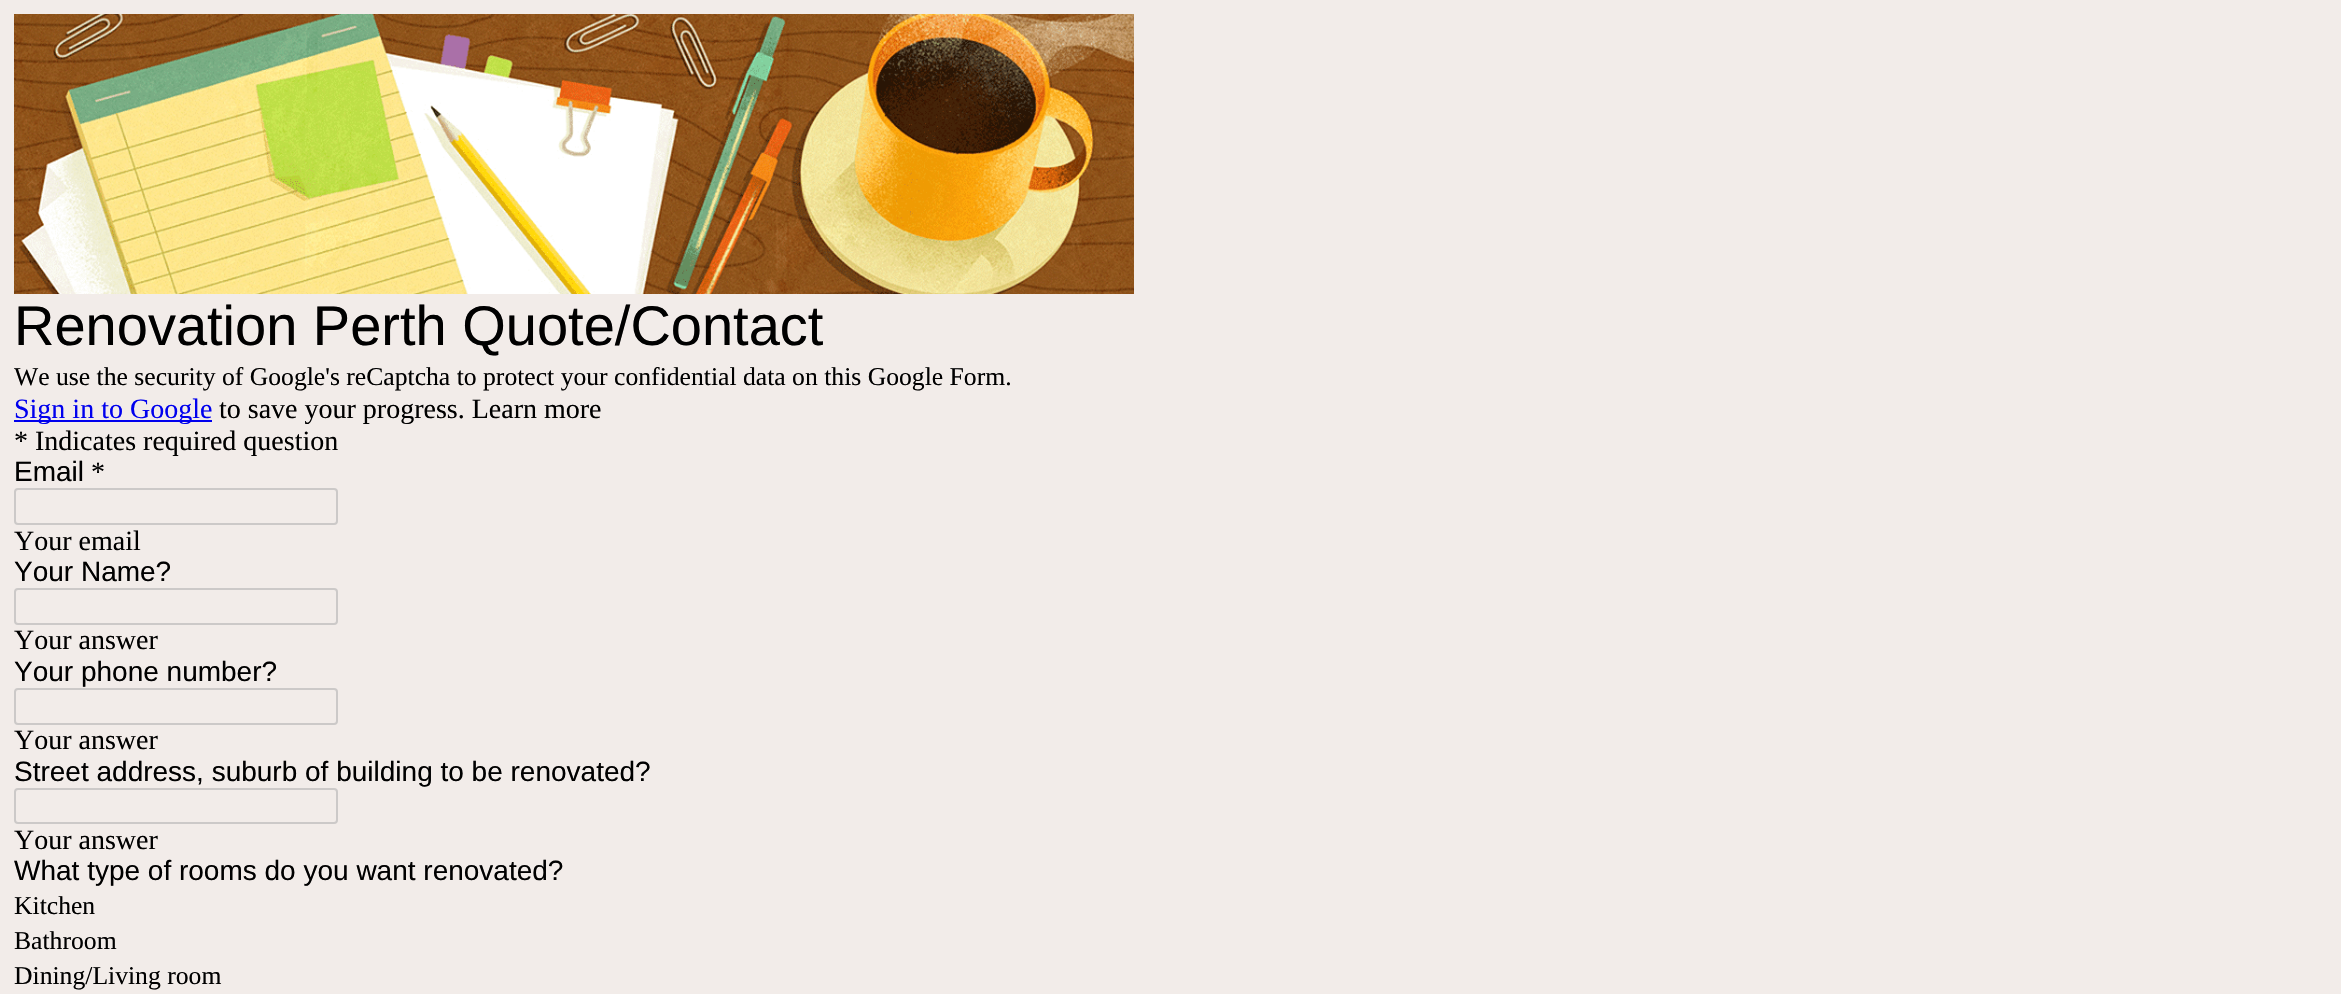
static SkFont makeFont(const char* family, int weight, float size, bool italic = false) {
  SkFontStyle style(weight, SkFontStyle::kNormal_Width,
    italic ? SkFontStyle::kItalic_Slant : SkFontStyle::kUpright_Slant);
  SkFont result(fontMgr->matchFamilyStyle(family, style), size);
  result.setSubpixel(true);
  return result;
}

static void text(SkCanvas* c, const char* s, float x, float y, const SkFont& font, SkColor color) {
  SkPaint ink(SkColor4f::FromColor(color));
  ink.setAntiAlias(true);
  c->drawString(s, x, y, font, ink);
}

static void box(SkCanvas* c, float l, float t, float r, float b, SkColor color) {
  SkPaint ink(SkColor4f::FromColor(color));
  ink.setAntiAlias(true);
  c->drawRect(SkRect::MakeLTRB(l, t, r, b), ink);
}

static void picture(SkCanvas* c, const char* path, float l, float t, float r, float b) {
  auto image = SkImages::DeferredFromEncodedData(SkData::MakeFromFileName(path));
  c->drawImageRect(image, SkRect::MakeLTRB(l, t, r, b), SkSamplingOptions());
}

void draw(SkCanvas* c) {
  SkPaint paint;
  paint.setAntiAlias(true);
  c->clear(0xfff2ece9);
  picture(c, "img_01.png", 14, 14, 1134, 294);
  SkFont face1 = makeFont("Liberation Sans", 400, 56);
  text(c, "Renovation Perth Quote/Contact", 14, 345, face1, 0xff000000);
  SkFont face2 = makeFont("Liberation Serif", 400, 25.65f);
  text(c, "We use the security of Google's reCaptcha to protect your confidential data on this Google Form.", 14, 385, face2, 0xff000000);
  box(c, 14, 420, 212, 422, 0xff0000ee);
  SkFont face3 = makeFont("Liberation Serif", 400, 28);
  text(c, "Sign in to Google", 14, 418, face3, 0xff0000ee);
  text(c, "to save your progress. Learn more", 219, 418, face3, 0xff000000);
  text(c, "* Indicates required question", 14, 450, face3, 0xff000000);
  SkFont face4 = makeFont("Liberation Sans", 400, 28);
  text(c, "Email", 14, 481, face4, 0xff000000);
  text(c, "*", 91, 481, face3, 0xff000000);
  paint.setStyle(SkPaint::kStroke_Style);
  paint.setStrokeWidth(2);
  paint.setColor(0xffccc9c8);
  c->drawRoundRect(SkRect::MakeLTRB(15, 489, 337, 524), 3, 3, paint);
  text(c, "Your email", 14, 550, face3, 0xff000000);
  text(c, "Your Name?", 14, 581, face4, 0xff000000);
  c->drawRoundRect(SkRect::MakeLTRB(15, 589, 337, 624), 3, 3, paint);
  text(c, "Your answer", 14, 649, face3, 0xff000000);
  text(c, "Your phone number?", 14, 681, face4, 0xff000000);
  c->drawRoundRect(SkRect::MakeLTRB(15, 689, 337, 724), 3, 3, paint);
  text(c, "Your answer", 14, 749, face3, 0xff000000);
  text(c, "Street address, suburb of building to be renovated?", 14, 781, face4, 0xff000000);
  c->drawRoundRect(SkRect::MakeLTRB(15, 789, 337, 823), 3, 3, paint);
  text(c, "Your answer", 14, 849, face3, 0xff000000);
  text(c, "What type of rooms do you want renovated?", 14, 880, face4, 0xff000000);
  text(c, "Kitchen", 14, 914, face2, 0xff000000);
  text(c, "Bathroom", 14, 949, face2, 0xff000000);
  text(c, "Dining/Living room", 14, 984, face2, 0xff000000);
}
